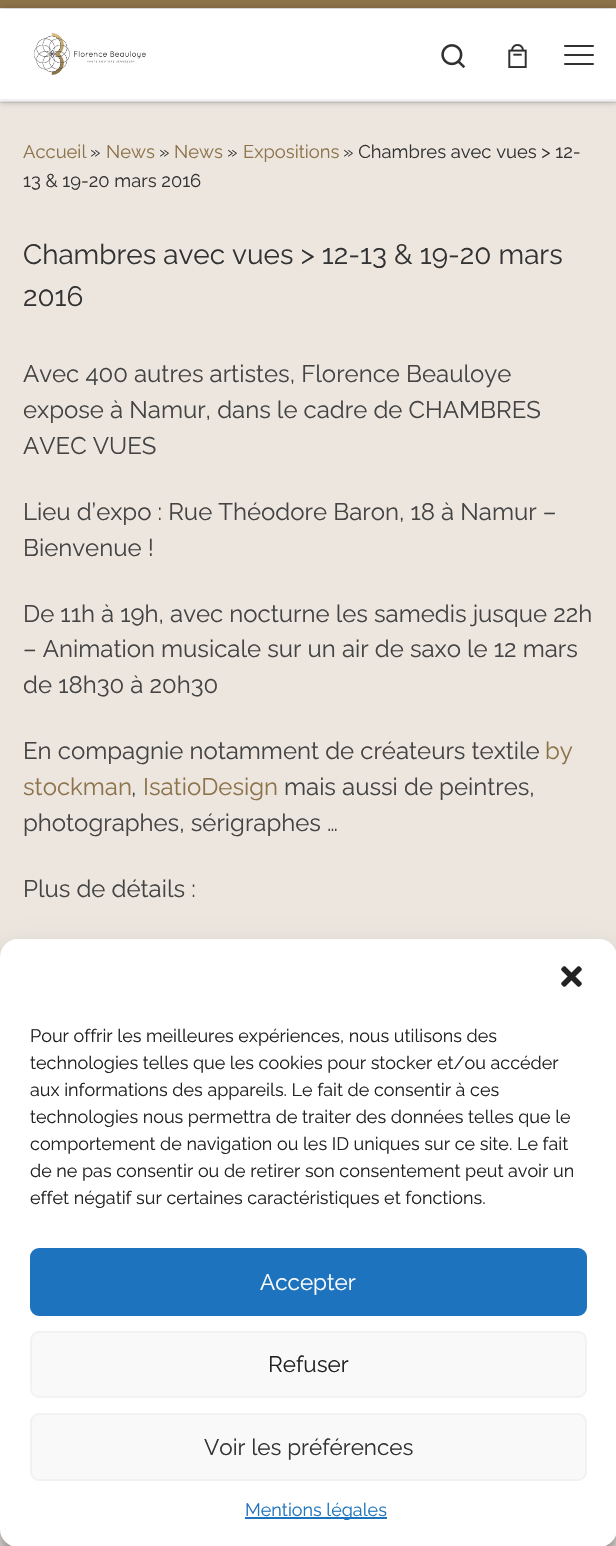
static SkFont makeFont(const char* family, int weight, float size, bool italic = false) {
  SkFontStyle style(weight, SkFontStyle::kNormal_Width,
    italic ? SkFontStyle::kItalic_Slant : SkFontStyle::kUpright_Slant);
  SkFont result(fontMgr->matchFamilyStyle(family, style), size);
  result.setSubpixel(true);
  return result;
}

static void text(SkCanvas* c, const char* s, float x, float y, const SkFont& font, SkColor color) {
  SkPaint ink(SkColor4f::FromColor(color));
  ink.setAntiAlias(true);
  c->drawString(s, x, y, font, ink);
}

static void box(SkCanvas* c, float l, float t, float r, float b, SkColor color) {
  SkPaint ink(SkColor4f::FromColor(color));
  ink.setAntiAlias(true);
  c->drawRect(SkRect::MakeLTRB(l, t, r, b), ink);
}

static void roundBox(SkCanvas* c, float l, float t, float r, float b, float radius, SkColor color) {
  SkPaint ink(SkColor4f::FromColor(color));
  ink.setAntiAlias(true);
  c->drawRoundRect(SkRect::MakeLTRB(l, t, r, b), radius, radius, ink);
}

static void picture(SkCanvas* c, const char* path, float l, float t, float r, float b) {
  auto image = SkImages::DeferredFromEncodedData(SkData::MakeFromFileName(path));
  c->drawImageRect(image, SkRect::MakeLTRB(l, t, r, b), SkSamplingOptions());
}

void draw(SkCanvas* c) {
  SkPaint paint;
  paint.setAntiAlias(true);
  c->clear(0xffece6df);
  paint.setColor(0x14666666);
  paint.setMaskFilter(SkMaskFilter::MakeBlur(kNormal_SkBlurStyle, 1.5f));
  c->drawRect(SkRect::MakeLTRB(0, 3, 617, 105), paint);
  paint.setMaskFilter(nullptr);
  box(c, 0, 101, 616, 102, 0xffffffff);
  box(c, 0, 0, 616, 8, 0xff8d734a);
  box(c, 0, 101, 616, 103, 0x17313131);
  paint.setColor(0x26ffffff);
  c->drawPath(SkPathBuilder().moveTo(0, 100).lineTo(0, 102).lineTo(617, 102).lineTo(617, 11).lineTo(616, 11).lineTo(616, 100).close().detach(), paint);
  box(c, 0, 8, 616, 9, 0xffececec);
  paint.setColor(0x33000000);
  paint.setMaskFilter(SkMaskFilter::MakeBlur(kNormal_SkBlurStyle, 4));
  c->drawRect(SkRect::MakeLTRB(0, 9, 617, 101), paint);
  paint.setMaskFilter(nullptr);
  box(c, 0, 9, 616, 99, 0xffffffff);
  picture(c, "img_01.png", 34, 33, 146, 75);
  picture(c, "img_02.png", 441, 44, 466, 69);
  picture(c, "img_03.png", 508, 44, 527, 68);
  roundBox(c, 564, 45, 594, 47, 1, 0xff313131);
  roundBox(c, 564, 54, 594, 56, 1, 0xff313131);
  roundBox(c, 564, 63, 594, 65, 1, 0xff313131);
  box(c, 0, 99, 616, 101, 0xfff0f0f0);
  SkFont face1 = makeFont("Raleway", 100, 18.4f);
  text(c, "Accueil", 23, 158, face1, 0xff8d734a);
  text(c, "»", 90, 158, face1, 0xff333333);
  text(c, "News", 106, 158, face1, 0xff8d734a);
  text(c, "»", 159, 158, face1, 0xff333333);
  text(c, "News", 174, 158, face1, 0xff8d734a);
  text(c, "»", 227, 158, face1, 0xff333333);
  text(c, "Expositions", 243, 158, face1, 0xff8d734a);
  text(c, "» Chambres avec vues > 12-", 343, 158, face1, 0xff333333);
  text(c, "13 & 19-20 mars 2016", 23, 187, face1, 0xff333333);
  SkFont face2 = makeFont("Raleway", 100, 27.9f);
  text(c, "Chambres avec vues > 12-13 & 19-20 mars", 23, 264, face2, 0xff333333);
  text(c, "2016", 23, 306, face2, 0xff333333);
  SkFont face3 = makeFont("Raleway", 100, 24);
  text(c, "Avec 400 autres artistes, Florence Beauloye", 23, 382, face3, 0xff444444);
  text(c, "expose à Namur, dans le cadre de CHAMBRES", 23, 418, face3, 0xff444444);
  text(c, "AVEC VUES", 23, 454, face3, 0xff444444);
  text(c, "Lieu d’expo : Rue Théodore Baron, 18 à Namur –", 23, 520, face3, 0xff444444);
  text(c, "Bienvenue !", 23, 556, face3, 0xff444444);
  text(c, "De 11h à 19h, avec nocturne les samedis jusque 22h", 23, 622, face3, 0xff444444);
  text(c, "– Animation musicale sur un air de saxo le 12 mars", 23, 657, face3, 0xff444444);
  text(c, "de 18h30 à 20h30", 23, 693, face3, 0xff444444);
  text(c, "En compagnie notamment de créateurs textile", 23, 759, face3, 0xff444444);
  text(c, "by", 545, 759, face3, 0xff8d734a);
  text(c, "stockman", 23, 795, face3, 0xff8d734a);
  text(c, ",", 131, 795, face3, 0xff444444);
  text(c, "IsatioDesign", 143, 795, face3, 0xff8d734a);
  text(c, "mais aussi de peintres,", 284, 795, face3, 0xff444444);
  text(c, "photographes, sérigraphes …", 23, 831, face3, 0xff444444);
  text(c, "Plus de détails :", 23, 897, face3, 0xff444444);
  paint.setColor(0x3b000000);
  paint.setMaskFilter(SkMaskFilter::MakeBlur(kNormal_SkBlurStyle, 4.5f));
  c->drawRoundRect(SkRect::MakeLTRB(0, 948, 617, 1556), 18, 18, paint);
  paint.setMaskFilter(nullptr);
  paint.setColor(0x30000000);
  paint.setMaskFilter(SkMaskFilter::MakeBlur(kNormal_SkBlurStyle, 15));
  c->drawRoundRect(SkRect::MakeLTRB(0, 954, 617, 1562), 18, 18, paint);
  paint.setMaskFilter(nullptr);
  roundBox(c, 0, 939, 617, 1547, 18, 0xffffffff);
  picture(c, "img_04.png", 561, 966, 582, 987);
  SkFont face4 = makeFont("Raleway", 100, 18);
  text(c, "Pour offrir les meilleures expériences, nous utilisons des", 30, 1042, face4, 0xff222222);
  text(c, "technologies telles que les cookies pour stocker et/ou accéder", 30, 1069, face4, 0xff222222);
  text(c, "aux informations des appareils. Le fait de consentir à ces", 30, 1096, face4, 0xff222222);
  text(c, "technologies nous permettra de traiter des données telles que le", 30, 1123, face4, 0xff222222);
  text(c, "comportement de navigation ou les ID uniques sur ce site. Le fait", 30, 1150, face4, 0xff222222);
  text(c, "de ne pas consentir ou de retirer son consentement peut avoir un", 30, 1177, face4, 0xff222222);
  text(c, "effet négatif sur certaines caractéristiques et fonctions.", 30, 1204, face4, 0xff222222);
  paint.setColor(0xff1e73be);
  c->drawRoundRect(SkRect::MakeLTRB(31, 1249, 586, 1315), 8, 8, paint);
  paint.setStyle(SkPaint::kStroke_Style);
  paint.setStrokeWidth(2);
  c->drawRoundRect(SkRect::MakeLTRB(31, 1249, 586, 1315), 8, 8, paint);
  SkFont face5 = makeFont("Raleway", 100, 22.5f);
  text(c, "Accepter", 260, 1290, face5, 0xffffffff);
  paint.setStyle(SkPaint::kFill_Style);
  paint.setColor(0xfff9f9f9);
  c->drawRoundRect(SkRect::MakeLTRB(31, 1332, 586, 1397), 8, 8, paint);
  paint.setStyle(SkPaint::kStroke_Style);
  paint.setColor(0xfff2f2f2);
  c->drawRoundRect(SkRect::MakeLTRB(31, 1332, 586, 1397), 8, 8, paint);
  text(c, "Refuser", 268, 1372, face5, 0xff222222);
  paint.setStyle(SkPaint::kFill_Style);
  paint.setColor(0xfff9f9f9);
  c->drawRoundRect(SkRect::MakeLTRB(31, 1414, 586, 1480), 8, 8, paint);
  paint.setStyle(SkPaint::kStroke_Style);
  paint.setColor(0xfff2f2f2);
  c->drawRoundRect(SkRect::MakeLTRB(31, 1414, 586, 1480), 8, 8, paint);
  text(c, "Voir les préférences", 204, 1455, face5, 0xff333333);
  box(c, 245, 1517, 387, 1519, 0xff1e73be);
  text(c, "Mentions légales", 245, 1516, face4, 0xff1e73be);
}
